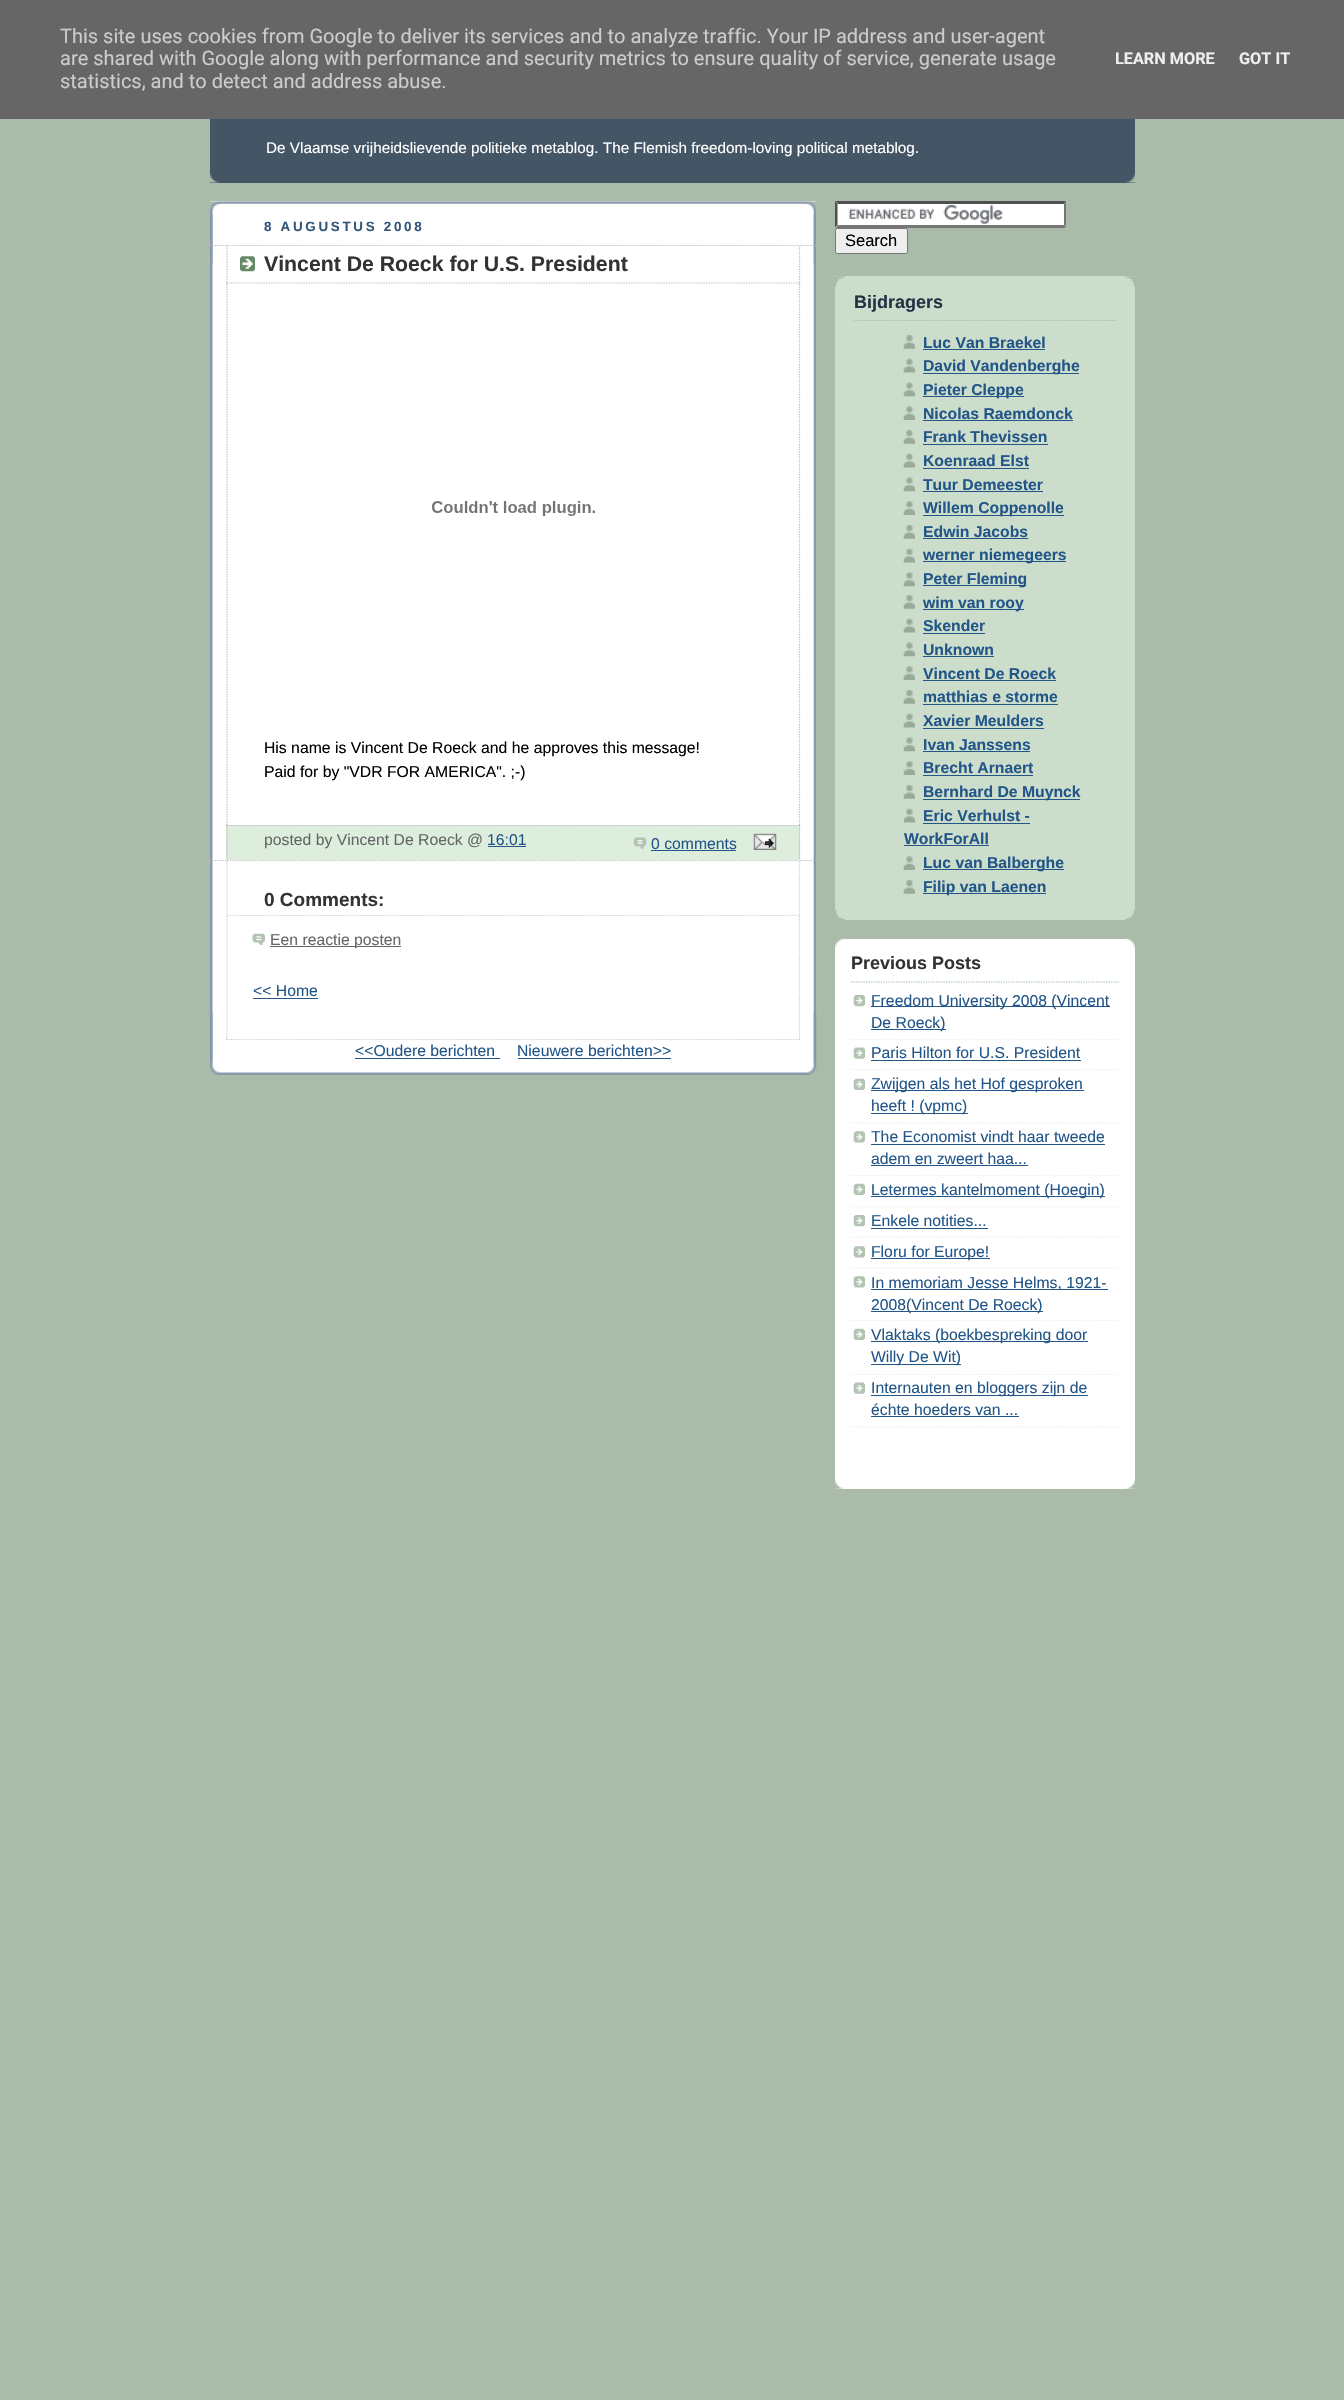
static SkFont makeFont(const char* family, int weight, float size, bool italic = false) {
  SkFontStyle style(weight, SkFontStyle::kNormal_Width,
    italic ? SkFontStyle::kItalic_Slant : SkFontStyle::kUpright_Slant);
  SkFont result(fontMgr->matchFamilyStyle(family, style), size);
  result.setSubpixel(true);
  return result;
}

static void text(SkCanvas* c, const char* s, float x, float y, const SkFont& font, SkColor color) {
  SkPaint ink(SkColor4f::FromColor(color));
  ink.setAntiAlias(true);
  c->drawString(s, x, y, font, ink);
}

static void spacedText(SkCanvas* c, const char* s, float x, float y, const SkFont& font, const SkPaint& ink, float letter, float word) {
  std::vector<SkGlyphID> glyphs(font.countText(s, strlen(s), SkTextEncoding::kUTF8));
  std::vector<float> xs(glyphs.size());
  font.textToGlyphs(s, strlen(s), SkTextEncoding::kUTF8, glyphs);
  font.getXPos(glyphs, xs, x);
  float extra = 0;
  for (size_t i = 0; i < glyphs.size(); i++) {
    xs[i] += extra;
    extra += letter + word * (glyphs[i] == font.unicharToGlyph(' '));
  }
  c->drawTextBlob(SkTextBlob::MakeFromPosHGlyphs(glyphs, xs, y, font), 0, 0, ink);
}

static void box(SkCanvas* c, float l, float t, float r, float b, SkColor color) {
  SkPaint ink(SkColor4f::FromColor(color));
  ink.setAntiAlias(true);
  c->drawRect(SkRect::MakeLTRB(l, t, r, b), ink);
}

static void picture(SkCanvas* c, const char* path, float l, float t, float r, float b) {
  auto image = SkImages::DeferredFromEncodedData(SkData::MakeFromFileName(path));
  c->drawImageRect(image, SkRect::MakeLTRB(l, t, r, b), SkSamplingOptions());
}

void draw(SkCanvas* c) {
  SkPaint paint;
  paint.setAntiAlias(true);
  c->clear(0xffaabbaa);
  box(c, 0, 0, 1344, 119, 0xff666666);
  SkFont face1 = makeFont("Roboto", 400, 20);
  text(c, "This site uses cookies from Google to deliver its services and to analyze traffic. Your IP address and user-agent", 60, 43, face1, 0xffcccccc);
  text(c, "are shared with Google along with performance and security metrics to ensure quality of service, generate usage", 60, 65, face1, 0xffcccccc);
  text(c, "statistics, and to detect and address abuse.", 60, 88, face1, 0xffcccccc);
  SkFont face2 = makeFont("Roboto", 700, 16.25f);
  text(c, "LEARN MORE", 1115, 64, face2, 0xffeeeeee);
  text(c, "GOT IT", 1239, 64, face2, 0xffeeeeee);
  box(c, 210, 119, 1135, 183, 0xff445566);
  picture(c, "img_01.png", 210, 173, 1135, 183);
  SkFont face3 = makeFont("Liberation Sans", 400, 15.3f);
  text(c, "De Vlaamse vrijheidslievende politieke metablog. The Flemish freedom-loving political metablog.", 266, 153, face3, 0xffffffff);
  box(c, 210, 201, 816, 1073, 0xffffffff);
  picture(c, "img_02.png", 210, 1012, 817, 1075);
  picture(c, "img_03.png", 210, 201, 816, 264);
  picture(c, "img_04.png", 210, 213, 816, 1063);
  SkFont face4 = makeFont("Liberation Sans", 700, 13.4f);
  paint.setColor(0xff335577);
  spacedText(c, "8 AUGUSTUS 2008", 264, 231, face4, paint, 2.7f, 0);
  paint.setStyle(SkPaint::kStroke_Style);
  paint.setStrokeWidth(1.2f);
  paint.setColor(0xffbbbbbb);
  paint.setPathEffect(SkDashPathEffect::Make({{1.25f, 1.25f}}, 0));
  c->drawPath(SkPathBuilder().moveTo(210, 245.5f).lineTo(816, 245.5f).detach(), paint);
  paint.setPathEffect(nullptr);
  paint.setPathEffect(SkDashPathEffect::Make({{1.25f, 1.25f}}, 0));
  c->drawPath(SkPathBuilder().moveTo(210, 860.5f).lineTo(816, 860.5f).detach(), paint);
  paint.setPathEffect(nullptr);
  picture(c, "img_05.png", 240, 256, 255, 272);
  paint.setPathEffect(SkDashPathEffect::Make({{1.25f, 1.25f}}, 0));
  c->drawPath(SkPathBuilder().moveTo(799.5f, 246).lineTo(799.5f, 284).detach(), paint);
  paint.setPathEffect(nullptr);
  paint.setPathEffect(SkDashPathEffect::Make({{1.25f, 1.25f}}, 0));
  c->drawPath(SkPathBuilder().moveTo(226, 283).lineTo(800, 283).detach(), paint);
  paint.setPathEffect(nullptr);
  paint.setPathEffect(SkDashPathEffect::Make({{1.25f, 1.25f}}, 0));
  c->drawPath(SkPathBuilder().moveTo(227, 246).lineTo(227, 284).detach(), paint);
  paint.setPathEffect(nullptr);
  SkFont face5 = makeFont("Liberation Sans", 700, 21.25f);
  text(c, "Vincent De Roeck for U.S. President", 264, 271, face5, 0xff333333);
  paint.setPathEffect(SkDashPathEffect::Make({{1.25f, 1.25f}}, 0));
  c->drawPath(SkPathBuilder().moveTo(799.5f, 284).lineTo(799.5f, 825).detach(), paint);
  paint.setPathEffect(nullptr);
  paint.setPathEffect(SkDashPathEffect::Make({{1.25f, 1.25f}}, 0));
  c->drawPath(SkPathBuilder().moveTo(227, 284).lineTo(227, 825).detach(), paint);
  paint.setPathEffect(nullptr);
  picture(c, "img_06.png", 432, 501, 595, 516);
  SkFont face6 = makeFont("Liberation Sans", 400, 15.75f);
  text(c, "His name is Vincent De Roeck and he approves this message!", 264, 753, face6, 0xff000000);
  text(c, "Paid for by \"VDR FOR AMERICA\". ;-)", 264, 777, face6, 0xff000000);
  box(c, 226, 825, 800, 860, 0xffddeedd);
  paint.setPathEffect(SkDashPathEffect::Make({{1.25f, 1.25f}}, 0));
  c->drawPath(SkPathBuilder().moveTo(226, 825.5f).lineTo(800, 825.5f).detach(), paint);
  paint.setPathEffect(nullptr);
  paint.setPathEffect(SkDashPathEffect::Make({{1.25f, 1.25f}}, 0));
  c->drawPath(SkPathBuilder().moveTo(799.5f, 825).lineTo(799.5f, 860).detach(), paint);
  paint.setPathEffect(nullptr);
  paint.setPathEffect(SkDashPathEffect::Make({{1.25f, 1.25f}}, 0));
  c->drawPath(SkPathBuilder().moveTo(227, 825).lineTo(227, 860).detach(), paint);
  paint.setPathEffect(nullptr);
  text(c, "posted by Vincent De Roeck @", 264, 845, face6, 0xff666666);
  text(c, "16:01", 487, 845, face6, 0xff225588);
  box(c, 488, 846, 526, 847, 0xff225588);
  picture(c, "img_07.png", 633, 837, 647, 849);
  text(c, "0 comments", 651, 849, face6, 0xff225588);
  box(c, 651, 850, 736, 851, 0xff225588);
  picture(c, "img_08.png", 753, 833, 777, 850);
  paint.setColor(0xffcccccc);
  paint.setPathEffect(SkDashPathEffect::Make({{1.25f, 1.25f}}, 0));
  c->drawPath(SkPathBuilder().moveTo(799.5f, 861).lineTo(799.5f, 1040).detach(), paint);
  paint.setPathEffect(nullptr);
  paint.setPathEffect(SkDashPathEffect::Make({{1.25f, 1.25f}}, 0));
  c->drawPath(SkPathBuilder().moveTo(226, 1039.5f).lineTo(800, 1039.5f).detach(), paint);
  paint.setPathEffect(nullptr);
  paint.setPathEffect(SkDashPathEffect::Make({{1.25f, 1.25f}}, 0));
  c->drawPath(SkPathBuilder().moveTo(227, 861).lineTo(227, 1040).detach(), paint);
  paint.setPathEffect(nullptr);
  paint.setPathEffect(SkDashPathEffect::Make({{1.25f, 1.25f}}, 0));
  c->drawPath(SkPathBuilder().moveTo(227.5f, 915.5f).lineTo(799, 915.5f).detach(), paint);
  paint.setPathEffect(nullptr);
  SkFont face7 = makeFont("Liberation Sans", 700, 19);
  text(c, "0 Comments:", 264, 906, face7, 0xff333333);
  picture(c, "img_09.png", 252, 933, 265, 945);
  box(c, 270, 946, 401, 947, 0xff666666);
  text(c, "Een reactie posten", 270, 945, face6, 0xff666666);
  text(c, "<< Home", 253, 996, face6, 0xff225588);
  box(c, 253, 998, 318, 999, 0xff225588);
  text(c, "<<Oudere berichten", 355, 1056, face6, 0xff225588);
  box(c, 355, 1058, 500, 1059, 0xff225588);
  text(c, "Nieuwere berichten>>", 517, 1056, face6, 0xff225588);
  box(c, 518, 1058, 671, 1059, 0xff225588);
  box(c, 835, 201, 1066, 228, 0xffffffff);
  picture(c, "img_10.png", 848, 205, 1003, 224);
  paint.setStyle(SkPaint::kFill_Style);
  paint.setColor(0xff4f4f4f);
  c->drawPath(SkPathBuilder().moveTo(835, 201).lineTo(1066, 201).lineTo(1064, 204).lineTo(838, 204).close().detach(), paint);
  paint.setColor(0xff767676);
  c->drawPath(SkPathBuilder().moveTo(1066, 201).lineTo(1066, 227.5f).lineTo(1064, 225).lineTo(1064, 204).close().detach(), paint);
  c->drawPath(SkPathBuilder().moveTo(1066, 228).lineTo(835, 228).lineTo(838, 225).lineTo(1064, 225).close().detach(), paint);
  paint.setColor(0xff4f4f4f);
  c->drawPath(SkPathBuilder().moveTo(835, 227.5f).lineTo(835, 201).lineTo(837.5f, 204).lineTo(837.5f, 225).close().detach(), paint);
  paint.setColor(0xffefefef);
  c->drawRoundRect(SkRect::MakeLTRB(835.5f, 228.5f, 907.5f, 253.5f), 2, 2, paint);
  paint.setStyle(SkPaint::kStroke_Style);
  paint.setStrokeWidth(1);
  paint.setColor(0xff767676);
  c->drawRoundRect(SkRect::MakeLTRB(835.5f, 228.5f, 907.5f, 253.5f), 2, 2, paint);
  SkFont face8 = makeFont("Liberation Sans", 400, 16.5f);
  text(c, "Search", 845, 246, face8, 0xff000000);
  box(c, 835, 276, 1135, 920, 0xffccddcc);
  picture(c, "img_11.png", 835, 910, 1135, 920);
  picture(c, "img_12.png", 835, 276, 1135, 287);
  SkFont face9 = makeFont("Liberation Sans", 700, 18);
  text(c, "Bijdragers", 854, 308, face9, 0xff223344);
  paint.setStrokeWidth(1.2f);
  paint.setColor(0xffaabbaa);
  paint.setPathEffect(SkDashPathEffect::Make({{1.25f, 1.25f}}, 0));
  c->drawPath(SkPathBuilder().moveTo(854, 320.5f).lineTo(1116, 320.5f).detach(), paint);
  paint.setPathEffect(nullptr);
  picture(c, "img_13.png", 903, 335, 915, 349);
  SkFont face10 = makeFont("Liberation Sans", 700, 15.75f);
  text(c, "Luc Van Braekel", 923, 348, face10, 0xff225588);
  box(c, 923, 349, 1045, 350, 0xff225588);
  picture(c, "img_14.png", 903, 358, 915, 373);
  box(c, 923, 373, 1079, 374, 0xff225588);
  text(c, "David Vandenberghe", 923, 371, face10, 0xff225588);
  picture(c, "img_15.png", 903, 382, 915, 397);
  box(c, 923, 396, 1024, 397, 0xff225588);
  text(c, "Pieter Cleppe", 923, 395, face10, 0xff225588);
  picture(c, "img_16.png", 903, 406, 915, 420);
  text(c, "Nicolas Raemdonck", 923, 419, face10, 0xff225588);
  box(c, 923, 420, 1073, 421, 0xff225588);
  picture(c, "img_13.png", 903, 430, 915, 444);
  text(c, "Frank Thevissen", 923, 442, face10, 0xff225588);
  box(c, 923, 444, 1048, 445, 0xff225588);
  picture(c, "img_14.png", 903, 453, 915, 468);
  text(c, "Koenraad Elst", 923, 466, face10, 0xff225588);
  box(c, 923, 468, 1029, 469, 0xff225588);
  picture(c, "img_15.png", 903, 477, 915, 492);
  text(c, "Tuur Demeester", 923, 490, face10, 0xff225588);
  box(c, 923, 491, 1043, 492, 0xff225588);
  picture(c, "img_16.png", 903, 501, 915, 515);
  box(c, 923, 515, 1064, 516, 0xff225588);
  text(c, "Willem Coppenolle", 923, 513, face10, 0xff225588);
  picture(c, "img_13.png", 903, 525, 915, 539);
  text(c, "Edwin Jacobs", 923, 537, face10, 0xff225588);
  box(c, 923, 538, 1028, 539, 0xff225588);
  picture(c, "img_14.png", 903, 548, 915, 563);
  box(c, 923, 561, 1066, 562, 0xff225588);
  text(c, "werner niemegeers", 923, 560, face10, 0xff225588);
  picture(c, "img_15.png", 903, 572, 915, 587);
  box(c, 923, 585, 1026, 586, 0xff225588);
  text(c, "Peter Fleming", 923, 584, face10, 0xff225588);
  picture(c, "img_13.png", 903, 595, 915, 609);
  box(c, 923, 609, 1024, 610, 0xff225588);
  text(c, "wim van rooy", 923, 608, face10, 0xff225588);
  picture(c, "img_14.png", 903, 618, 915, 633);
  text(c, "Skender", 923, 631, face10, 0xff225588);
  box(c, 923, 633, 985, 634, 0xff225588);
  picture(c, "img_15.png", 903, 642, 915, 657);
  text(c, "Unknown", 923, 655, face10, 0xff225588);
  box(c, 923, 656, 994, 657, 0xff225588);
  picture(c, "img_16.png", 903, 666, 915, 680);
  text(c, "Vincent De Roeck", 923, 679, face10, 0xff225588);
  box(c, 923, 680, 1056, 681, 0xff225588);
  picture(c, "img_13.png", 903, 690, 915, 704);
  text(c, "matthias e storme", 923, 702, face10, 0xff225588);
  box(c, 923, 704, 1058, 705, 0xff225588);
  picture(c, "img_14.png", 903, 713, 915, 728);
  text(c, "Xavier Meulders", 923, 726, face10, 0xff225588);
  box(c, 923, 728, 1044, 729, 0xff225588);
  picture(c, "img_15.png", 903, 737, 915, 752);
  text(c, "Ivan Janssens", 923, 750, face10, 0xff225588);
  box(c, 923, 751, 1030, 752, 0xff225588);
  picture(c, "img_16.png", 903, 761, 915, 775);
  text(c, "Brecht Arnaert", 923, 773, face10, 0xff225588);
  box(c, 923, 775, 1033, 776, 0xff225588);
  picture(c, "img_13.png", 903, 785, 915, 799);
  box(c, 923, 799, 1080, 800, 0xff225588);
  text(c, "Bernhard De Muynck", 923, 797, face10, 0xff225588);
  picture(c, "img_17.png", 904, 808, 915, 823);
  text(c, "Eric Verhulst -", 923, 821, face10, 0xff225588);
  box(c, 923, 823, 1030, 824, 0xff225588);
  text(c, "WorkForAll", 904, 844, face10, 0xff225588);
  box(c, 904, 845, 989, 846, 0xff225588);
  picture(c, "img_16.png", 903, 856, 915, 870);
  box(c, 923, 869, 1064, 870, 0xff225588);
  text(c, "Luc van Balberghe", 923, 868, face10, 0xff225588);
  picture(c, "img_13.png", 903, 880, 915, 894);
  box(c, 923, 893, 1046, 894, 0xff225588);
  text(c, "Filip van Laenen", 923, 892, face10, 0xff225588);
  box(c, 835, 939, 1135, 1489, 0xffffffff);
  picture(c, "img_18.png", 835, 938, 1135, 948);
  picture(c, "img_19.png", 835, 1479, 1135, 1489);
  paint.setColor(0xff99bb99);
  paint.setPathEffect(SkDashPathEffect::Make({{1.25f, 1.25f}}, 0));
  c->drawPath(SkPathBuilder().moveTo(851, 982).lineTo(1119, 982).detach(), paint);
  paint.setPathEffect(nullptr);
  text(c, "Previous Posts", 851, 969, face9, 0xff333333);
  picture(c, "img_20.png", 853, 995, 865, 1007);
  paint.setColor(0xffeeeeee);
  paint.setPathEffect(SkDashPathEffect::Make({{1.25f, 1.25f}}, 0));
  c->drawPath(SkPathBuilder().moveTo(851, 1039.5f).lineTo(1119, 1039.5f).detach(), paint);
  paint.setPathEffect(nullptr);
  box(c, 871, 1006, 1110, 1007, 0xff225588);
  text(c, "Freedom University 2008 (Vincent", 871, 1006, face6, 0xff225588);
  box(c, 871, 1029, 946, 1030, 0xff225588);
  text(c, "De Roeck)", 871, 1028, face6, 0xff225588);
  picture(c, "img_21.png", 853, 1047, 865, 1059);
  paint.setPathEffect(SkDashPathEffect::Make({{1.25f, 1.25f}}, 0));
  c->drawPath(SkPathBuilder().moveTo(851, 1069.5f).lineTo(1119, 1069.5f).detach(), paint);
  paint.setPathEffect(nullptr);
  text(c, "Paris Hilton for U.S. President", 871, 1058, face6, 0xff225588);
  box(c, 871, 1060, 1081, 1061, 0xff225588);
  picture(c, "img_22.png", 853, 1078, 865, 1090);
  paint.setPathEffect(SkDashPathEffect::Make({{1.25f, 1.25f}}, 0));
  c->drawPath(SkPathBuilder().moveTo(851, 1123).lineTo(1119, 1123).detach(), paint);
  paint.setPathEffect(nullptr);
  box(c, 871, 1090, 1084, 1091, 0xff225588);
  text(c, "Zwijgen als het Hof gesproken", 871, 1089, face6, 0xff225588);
  box(c, 871, 1113, 968, 1114, 0xff225588);
  text(c, "heeft ! (vpmc)", 871, 1111, face6, 0xff225588);
  picture(c, "img_23.png", 853, 1131, 865, 1143);
  paint.setPathEffect(SkDashPathEffect::Make({{1.25f, 1.25f}}, 0));
  c->drawPath(SkPathBuilder().moveTo(851, 1175.5f).lineTo(1119, 1175.5f).detach(), paint);
  paint.setPathEffect(nullptr);
  text(c, "The Economist vindt haar tweede", 871, 1142, face6, 0xff225588);
  box(c, 871, 1144, 1105, 1145, 0xff225588);
  text(c, "adem en zweert haa...", 871, 1164, face6, 0xff225588);
  box(c, 871, 1165, 1028, 1166, 0xff225588);
  picture(c, "img_22.png", 853, 1183, 865, 1195);
  paint.setPathEffect(SkDashPathEffect::Make({{1.25f, 1.25f}}, 0));
  c->drawPath(SkPathBuilder().moveTo(851, 1207).lineTo(1119, 1207).detach(), paint);
  paint.setPathEffect(nullptr);
  box(c, 871, 1196, 1105, 1197, 0xff225588);
  text(c, "Letermes kantelmoment (Hoegin)", 871, 1195, face6, 0xff225588);
  picture(c, "img_20.png", 853, 1215, 865, 1227);
  paint.setPathEffect(SkDashPathEffect::Make({{1.25f, 1.25f}}, 0));
  c->drawPath(SkPathBuilder().moveTo(851, 1237).lineTo(1119, 1237).detach(), paint);
  paint.setPathEffect(nullptr);
  text(c, "Enkele notities...", 871, 1226, face6, 0xff225588);
  box(c, 871, 1228, 988, 1229, 0xff225588);
  picture(c, "img_23.png", 853, 1246, 865, 1258);
  paint.setPathEffect(SkDashPathEffect::Make({{1.25f, 1.25f}}, 0));
  c->drawPath(SkPathBuilder().moveTo(851, 1268).lineTo(1119, 1268).detach(), paint);
  paint.setPathEffect(nullptr);
  box(c, 871, 1258, 990, 1259, 0xff225588);
  text(c, "Floru for Europe!", 871, 1257, face6, 0xff225588);
  picture(c, "img_23.png", 853, 1276, 865, 1288);
  paint.setPathEffect(SkDashPathEffect::Make({{1.25f, 1.25f}}, 0));
  c->drawPath(SkPathBuilder().moveTo(851, 1320.5f).lineTo(1119, 1320.5f).detach(), paint);
  paint.setPathEffect(nullptr);
  box(c, 871, 1289, 1108, 1290, 0xff225588);
  text(c, "In memoriam Jesse Helms, 1921-", 871, 1288, face6, 0xff225588);
  box(c, 871, 1311, 1043, 1312, 0xff225588);
  text(c, "2008(Vincent De Roeck)", 871, 1310, face6, 0xff225588);
  picture(c, "img_22.png", 853, 1328, 865, 1340);
  paint.setPathEffect(SkDashPathEffect::Make({{1.25f, 1.25f}}, 0));
  c->drawPath(SkPathBuilder().moveTo(851, 1374.5f).lineTo(1119, 1374.5f).detach(), paint);
  paint.setPathEffect(nullptr);
  box(c, 871, 1341, 1088, 1342, 0xff225588);
  text(c, "Vlaktaks (boekbespreking door", 871, 1340, face6, 0xff225588);
  box(c, 871, 1364, 961, 1365, 0xff225588);
  text(c, "Willy De Wit)", 871, 1362, face6, 0xff225588);
  picture(c, "img_21.png", 853, 1382, 865, 1394);
  paint.setPathEffect(SkDashPathEffect::Make({{1.25f, 1.25f}}, 0));
  c->drawPath(SkPathBuilder().moveTo(851, 1427).lineTo(1119, 1427).detach(), paint);
  paint.setPathEffect(nullptr);
  box(c, 871, 1395, 1088, 1396, 0xff225588);
  text(c, "Internauten en bloggers zijn de", 871, 1393, face6, 0xff225588);
  text(c, "échte hoeders van ...", 871, 1415, face6, 0xff225588);
  box(c, 871, 1416, 1019, 1417, 0xff225588);
}
